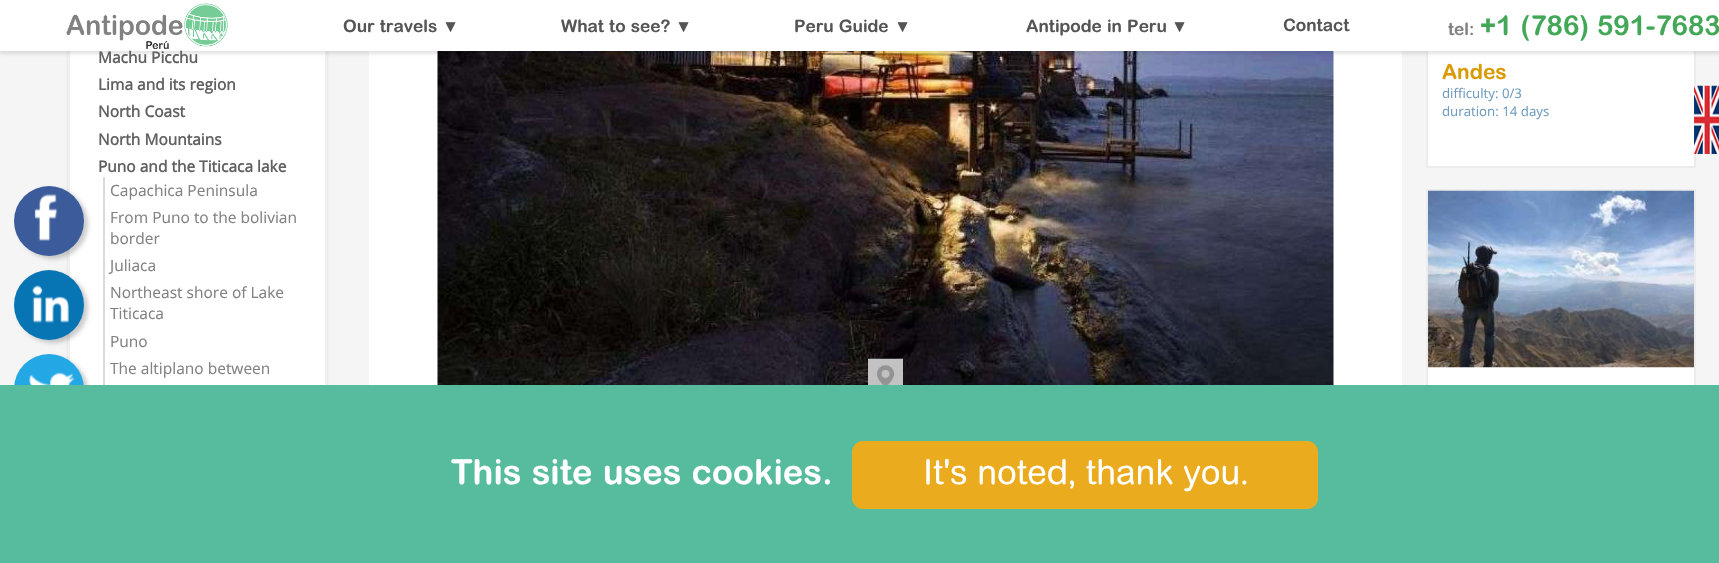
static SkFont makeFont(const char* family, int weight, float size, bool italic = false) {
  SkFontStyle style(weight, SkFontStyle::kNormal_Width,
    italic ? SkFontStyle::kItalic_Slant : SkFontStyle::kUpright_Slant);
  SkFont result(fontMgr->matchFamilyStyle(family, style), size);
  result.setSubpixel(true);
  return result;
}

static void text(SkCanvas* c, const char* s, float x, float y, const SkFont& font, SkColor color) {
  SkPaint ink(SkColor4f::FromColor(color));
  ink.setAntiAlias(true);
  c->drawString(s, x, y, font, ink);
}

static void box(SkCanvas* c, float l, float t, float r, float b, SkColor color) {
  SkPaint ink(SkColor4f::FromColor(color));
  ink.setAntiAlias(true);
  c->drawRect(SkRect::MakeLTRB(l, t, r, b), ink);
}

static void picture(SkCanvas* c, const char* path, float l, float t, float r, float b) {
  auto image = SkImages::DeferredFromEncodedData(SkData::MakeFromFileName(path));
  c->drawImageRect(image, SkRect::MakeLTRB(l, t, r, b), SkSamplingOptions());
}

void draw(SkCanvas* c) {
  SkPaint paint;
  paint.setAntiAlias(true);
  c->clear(0xffffffff);
  picture(c, "img_06.png", 437, 51, 1334, 385);
  box(c, 0, 51, 369, 385, 0xfff5f5f5);
  paint.setColor(0x1a000000);
  paint.setMaskFilter(SkMaskFilter::MakeBlur(kNormal_SkBlurStyle, 1.5f));
  c->drawRoundRect(SkRect::MakeLTRB(68, -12, 327, 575), 7, 7, paint);
  paint.setMaskFilter(nullptr);
  box(c, 70, 51, 325, 385, 0xffffffff);
  paint.setStyle(SkPaint::kStroke_Style);
  paint.setStrokeWidth(2);
  paint.setColor(0xfff0f0f0);
  c->drawRect(SkRect::MakeLTRB(69, -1, 326, 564), paint);
  box(c, 1402, 51, 1719, 385, 0xfff5f5f5);
  box(c, 1428, 51, 1694, 166, 0xffffffff);
  paint.setColor(0xffececec);
  c->drawRect(SkRect::MakeLTRB(1427, -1, 1695, 167), paint);
  paint.setStyle(SkPaint::kFill_Style);
  paint.setColor(0x1a000000);
  paint.setMaskFilter(SkMaskFilter::MakeBlur(kNormal_SkBlurStyle, 1.5f));
  c->drawRect(SkRect::MakeLTRB(0, 4, 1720, 54), paint);
  paint.setMaskFilter(nullptr);
  box(c, 0, 0, 1719, 51, 0xffffffff);
  picture(c, "img_01.png", 66, 3, 228, 49);
  SkFont face1 = makeFont("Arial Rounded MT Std", 700, 17.25f);
  text(c, "Our travels", 343, 32, face1, 0xff555555);
  SkFont face2 = makeFont("Liberation Sans", 400, 17.25f);
  text(c, "▼", 442, 32, face2, 0xff555555);
  text(c, "What to see?", 561, 32, face1, 0xff555555);
  text(c, "▼", 675, 32, face2, 0xff555555);
  text(c, "Peru Guide", 794, 32, face1, 0xff555555);
  text(c, "▼", 894, 32, face2, 0xff555555);
  text(c, "Antipode in Peru", 1026, 32, face1, 0xff555555);
  text(c, "▼", 1171, 32, face2, 0xff555555);
  text(c, "Contact", 1283, 31, face1, 0xff555555);
  text(c, "tel:", 1448, 35, face1, 0xff818181);
  SkFont face3 = makeFont("Arial Rounded MT Std", 700, 27.5f);
  text(c, "+1 (786) 591-7683", 1480, 35, face3, 0xff42a857);
  picture(c, "img_02.png", 1694, 85, 1719, 154);
  paint.setColor(0x33000000);
  paint.setMaskFilter(SkMaskFilter::MakeBlur(kNormal_SkBlurStyle, 2));
  c->drawRoundRect(SkRect::MakeLTRB(18, 189, 88, 259), 35, 35, paint);
  paint.setMaskFilter(nullptr);
  paint.setColor(0xff3c5b9b);
  c->drawCircle(49, 221, 35, paint);
  picture(c, "img_03.png", 34, 194, 58, 241);
  paint.setColor(0x33000000);
  paint.setMaskFilter(SkMaskFilter::MakeBlur(kNormal_SkBlurStyle, 2));
  c->drawRoundRect(SkRect::MakeLTRB(18, 273, 88, 343), 35, 35, paint);
  paint.setMaskFilter(nullptr);
  paint.setColor(0xff0774b3);
  c->drawCircle(49, 305, 35, paint);
  picture(c, "img_04.png", 32, 285, 69, 323);
  paint.setColor(0x33000000);
  paint.setMaskFilter(SkMaskFilter::MakeBlur(kNormal_SkBlurStyle, 2));
  c->drawRoundRect(SkRect::MakeLTRB(18, 357, 88, 427), 35, 35, paint);
  paint.setMaskFilter(nullptr);
  paint.setColor(0xff23a7e5);
  c->drawCircle(49, 389, 35, paint);
  picture(c, "img_05.png", 29, 372, 75, 385);
  picture(c, "img_07.png", 868, 358, 903, 385);
  SkFont face4 = makeFont("Open Sans", 700, 15.5f);
  text(c, "Machu Picchu", 98, 63, face4, 0xff616161);
  text(c, "Lima and its region", 98, 90, face4, 0xff616161);
  text(c, "North Coast", 98, 117, face4, 0xff616161);
  text(c, "North Mountains", 98, 145, face4, 0xff616161);
  text(c, "Puno and the Titicaca lake", 98, 172, face4, 0xff616161);
  box(c, 103, 177, 105, 385, 0xffdadada);
  SkFont face5 = makeFont("Open Sans", 400, 15.5f);
  text(c, "Capachica Peninsula", 110, 196, face5, 0xff818181);
  text(c, "From Puno to the bolivian", 110, 223, face5, 0xff818181);
  text(c, "border", 110, 244, face5, 0xff818181);
  text(c, "Juliaca", 110, 271, face5, 0xff818181);
  text(c, "Northeast shore of Lake", 110, 298, face5, 0xff818181);
  text(c, "Titicaca", 110, 319, face5, 0xff818181);
  text(c, "Puno", 110, 347, face5, 0xff818181);
  text(c, "The altiplano between", 110, 374, face5, 0xff818181);
  SkFont face6 = makeFont("Arial Rounded MT Std", 700, 21);
  text(c, "Andes", 1442, 79, face6, 0xffda9a05);
  SkFont face7 = makeFont("Open Sans", 400, 13.25f);
  text(c, "difficulty: 0/3", 1442, 98, face7, 0xff6f9bc0);
  text(c, "duration: 14 days", 1442, 116, face7, 0xff6f9bc0);
  box(c, 1428, 367, 1694, 385, 0xffffffff);
  paint.setStyle(SkPaint::kStroke_Style);
  paint.setColor(0xffececec);
  c->drawRect(SkRect::MakeLTRB(1427, 190, 1695, 510), paint);
  picture(c, "img_08.png", 1428, 190, 1694, 368);
  box(c, 0, 385, 1719, 563, 0xff57bb9d);
  SkFont face8 = makeFont("Arial Rounded MT Std", 700, 34.5f);
  text(c, "This site uses cookies.", 451, 484, face8, 0xffffffff);
  paint.setStyle(SkPaint::kFill_Style);
  paint.setColor(0xffeaac1e);
  c->drawRoundRect(SkRect::MakeLTRB(853, 442, 1317, 508), 10, 10, paint);
  paint.setStyle(SkPaint::kStroke_Style);
  c->drawRoundRect(SkRect::MakeLTRB(853, 442, 1317, 508), 10, 10, paint);
  SkFont face9 = makeFont("Arial Rounded MT Std", 500, 34.5f);
  text(c, "It's noted, thank you.", 923, 484, face9, 0xffffffff);
}
